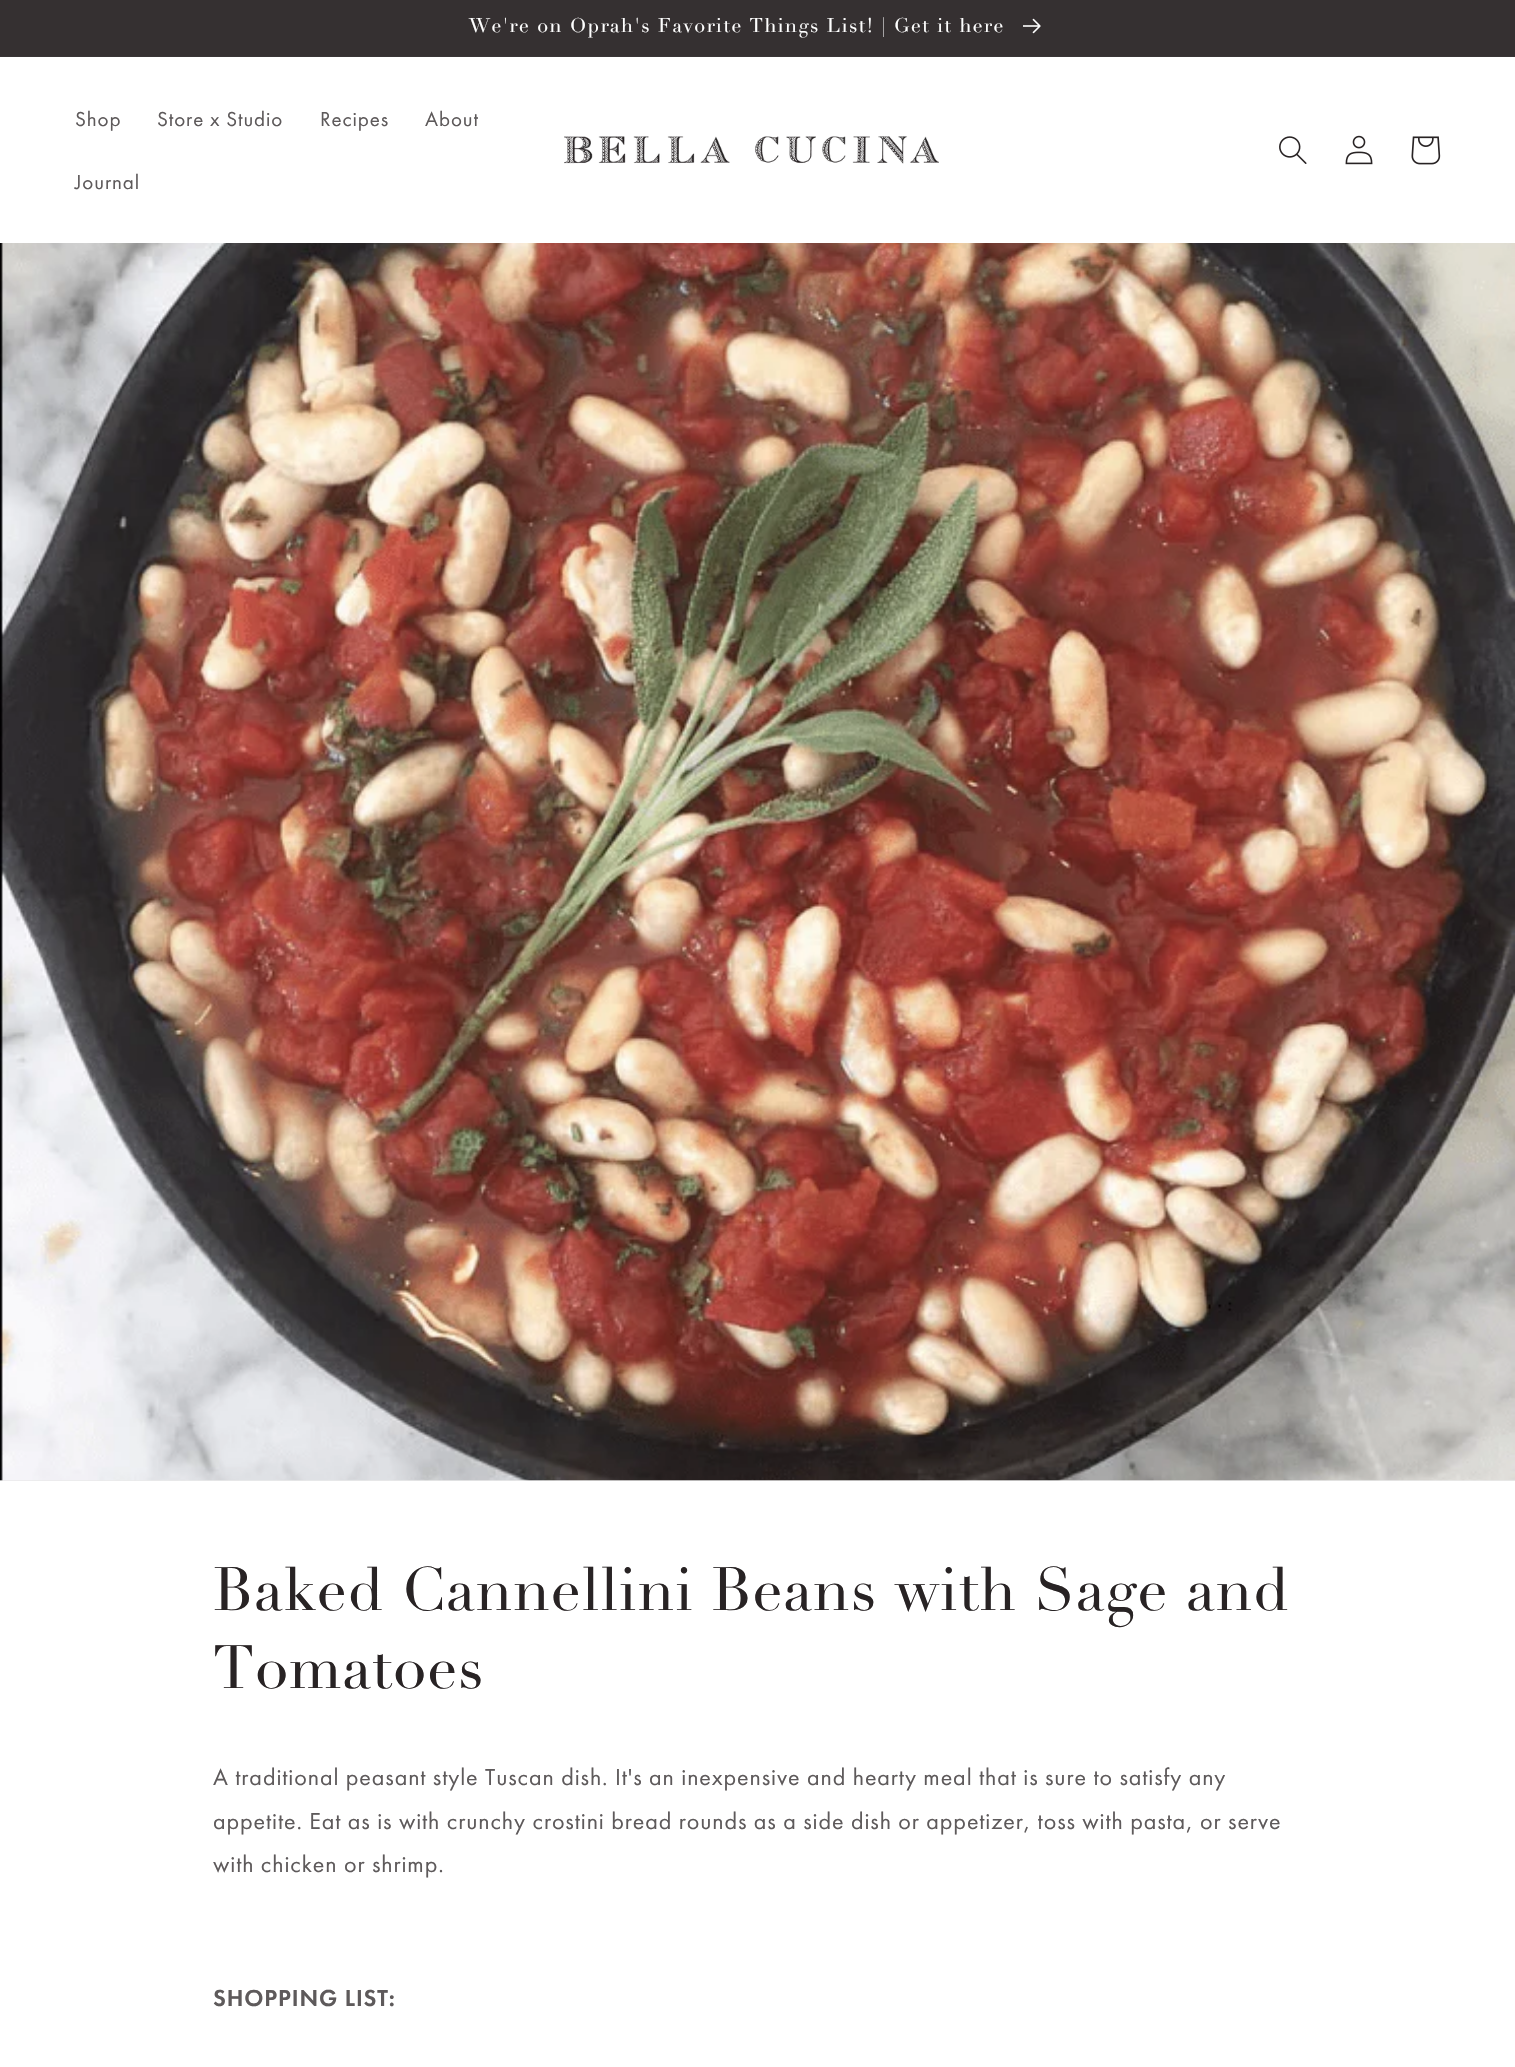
static SkFont makeFont(const char* family, int weight, float size, bool italic = false) {
  SkFontStyle style(weight, SkFontStyle::kNormal_Width,
    italic ? SkFontStyle::kItalic_Slant : SkFontStyle::kUpright_Slant);
  SkFont result(fontMgr->matchFamilyStyle(family, style), size);
  result.setSubpixel(true);
  return result;
}

static void spacedText(SkCanvas* c, const char* s, float x, float y, const SkFont& font, const SkPaint& ink, float letter, float word) {
  std::vector<SkGlyphID> glyphs(font.countText(s, strlen(s), SkTextEncoding::kUTF8));
  std::vector<float> xs(glyphs.size());
  font.textToGlyphs(s, strlen(s), SkTextEncoding::kUTF8, glyphs);
  font.getXPos(glyphs, xs, x);
  float extra = 0;
  for (size_t i = 0; i < glyphs.size(); i++) {
    xs[i] += extra;
    extra += letter + word * (glyphs[i] == font.unicharToGlyph(' '));
  }
  c->drawTextBlob(SkTextBlob::MakeFromPosHGlyphs(glyphs, xs, y, font), 0, 0, ink);
}

static void box(SkCanvas* c, float l, float t, float r, float b, SkColor color) {
  SkPaint ink(SkColor4f::FromColor(color));
  ink.setAntiAlias(true);
  c->drawRect(SkRect::MakeLTRB(l, t, r, b), ink);
}

static void picture(SkCanvas* c, const char* path, float l, float t, float r, float b) {
  auto image = SkImages::DeferredFromEncodedData(SkData::MakeFromFileName(path));
  c->drawImageRect(image, SkRect::MakeLTRB(l, t, r, b), SkSamplingOptions());
}

void draw(SkCanvas* c) {
  SkPaint paint;
  paint.setAntiAlias(true);
  c->clear(0xffffffff);
  box(c, 0, 56, 1515, 57, 0xff393536);
  box(c, 0, 0, 1515, 56, 0xff353031);
  SkFont face1 = makeFont("Didot", 400, 19.5f);
  paint.setColor(0xffffffff);
  spacedText(c, "We're on Oprah's Favorite Things List! | Get it here", 469, 32, face1, paint, 1.5f, 0);
  picture(c, "img_01.png", 1023, 18, 1041, 34);
  SkFont face2 = makeFont("Futura PT", 400, 21);
  paint.setColor(0xff5e5a5b);
  spacedText(c, "Shop", 75, 126, face2, paint, 0.9f, 0);
  spacedText(c, "Store x Studio", 157, 126, face2, paint, 0.9f, 0);
  spacedText(c, "Recipes", 320, 126, face2, paint, 0.9f, 0);
  spacedText(c, "About", 425, 126, face2, paint, 0.9f, 0);
  spacedText(c, "Journal", 75, 189, face2, paint, 0.9f, 0);
  picture(c, "img_02.png", 564, 136, 939, 164);
  picture(c, "img_03.png", 1279, 136, 1307, 164);
  picture(c, "img_04.png", 1345, 135, 1373, 165);
  picture(c, "img_05.png", 1411, 136, 1441, 165);
  box(c, 0, 1480, 1515, 1481, 0xffeaeaea);
  picture(c, "img_06.png", 0, 243, 1515, 1481);
  SkFont face3 = makeFont("Didot", 400, 60);
  paint.setColor(0xff282324);
  spacedText(c, "Baked Cannellini Beans with Sage and", 213, 1610, face3, paint, 0.9f, 0);
  spacedText(c, "Tomatoes", 213, 1688, face3, paint, 0.9f, 0);
  SkFont face4 = makeFont("Futura PT", 400, 24);
  paint.setColor(0xff5e5a5b);
  spacedText(c, "A traditional peasant style Tuscan dish. It's an inexpensive and hearty meal that is sure to satisfy any", 213, 1785, face4, paint, 0.9f, 0);
  spacedText(c, "appetite. Eat as is with crunchy crostini bread rounds as a side dish or appetizer, toss with pasta, or serve", 213, 1829, face4, paint, 0.9f, 0);
  spacedText(c, "with chicken or shrimp.", 213, 1872, face4, paint, 0.9f, 0);
  SkFont face5 = makeFont("Futura PT", 500, 24);
  spacedText(c, "SHOPPING LIST:", 213, 2006, face5, paint, 0.9f, 0);
}
